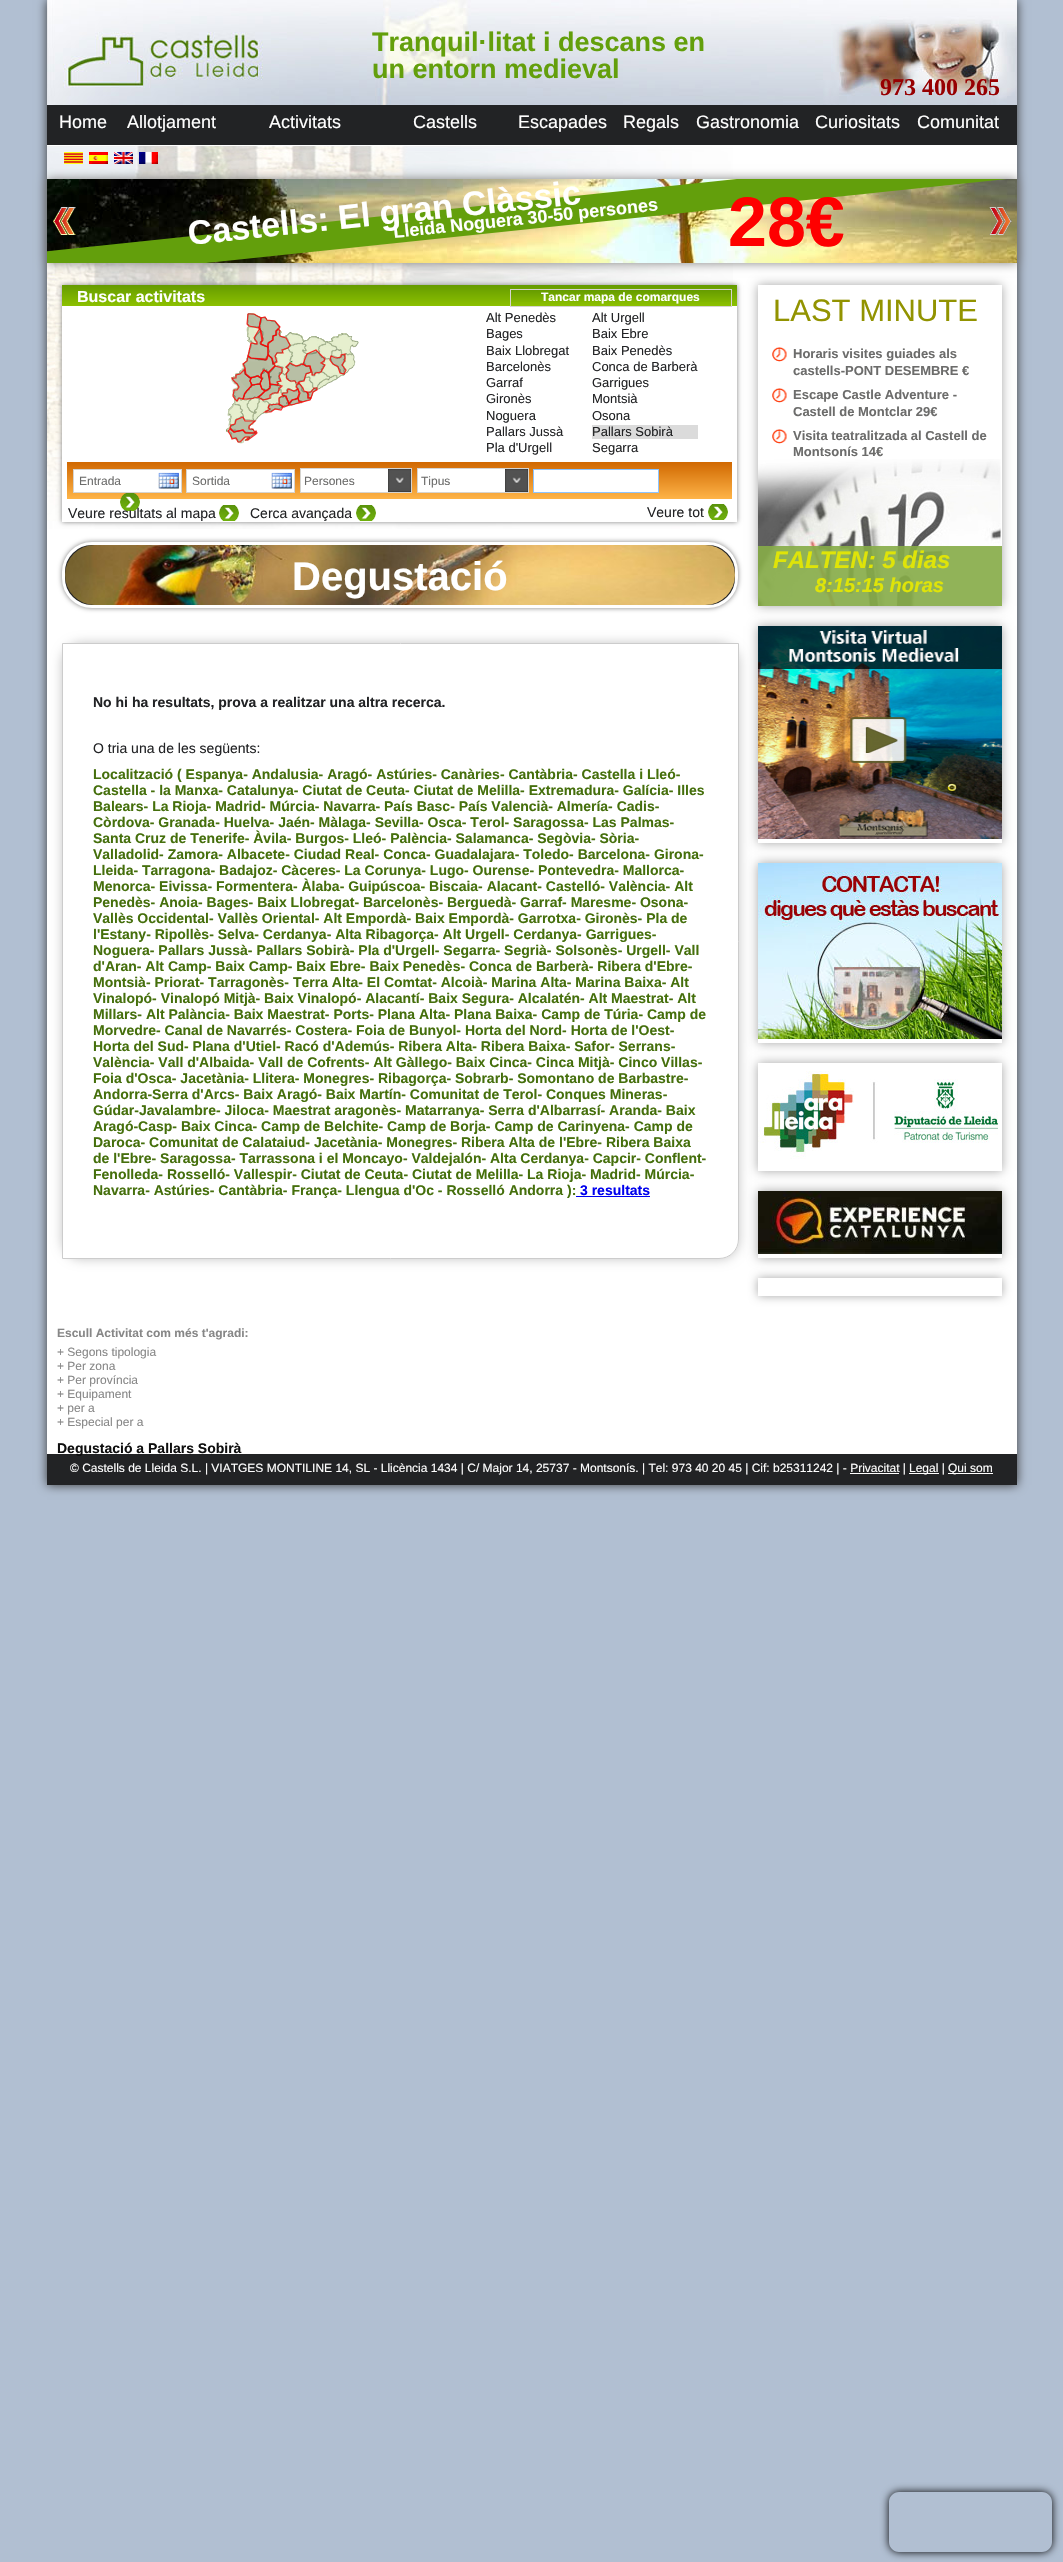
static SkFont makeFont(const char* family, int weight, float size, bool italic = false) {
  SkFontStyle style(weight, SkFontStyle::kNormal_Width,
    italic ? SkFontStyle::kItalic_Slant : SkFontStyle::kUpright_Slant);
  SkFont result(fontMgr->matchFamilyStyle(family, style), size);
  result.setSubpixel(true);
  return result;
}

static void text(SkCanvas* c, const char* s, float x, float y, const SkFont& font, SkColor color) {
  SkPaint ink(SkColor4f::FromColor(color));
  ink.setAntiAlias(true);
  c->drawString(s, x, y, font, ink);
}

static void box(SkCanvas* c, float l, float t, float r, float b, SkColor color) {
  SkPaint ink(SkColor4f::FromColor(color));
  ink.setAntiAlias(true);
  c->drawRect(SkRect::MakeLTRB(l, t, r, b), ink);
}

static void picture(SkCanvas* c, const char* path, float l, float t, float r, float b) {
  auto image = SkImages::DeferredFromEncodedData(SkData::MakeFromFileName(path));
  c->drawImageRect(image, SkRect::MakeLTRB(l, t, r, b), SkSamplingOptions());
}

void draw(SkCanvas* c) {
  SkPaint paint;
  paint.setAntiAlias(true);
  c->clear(0xffb1bfd2);
  paint.setColor(0xff373737);
  paint.setMaskFilter(SkMaskFilter::MakeBlur(kNormal_SkBlurStyle, 5));
  c->drawRect(SkRect::MakeLTRB(47, 0, 1017, 1485), paint);
  paint.setMaskFilter(nullptr);
  box(c, 47, 145, 1017, 1454, 0xffffffff);
  picture(c, "img_01.png", 47, 0, 1017, 105);
  SkFont face1 = makeFont("Liberation Sans", 700, 27);
  text(c, "Tranquil·litat i descans en", 372, 51, face1, 0xff639f0c);
  text(c, "un entorn medieval", 372, 78, face1, 0xff639f0c);
  SkFont face2 = makeFont("Liberation Serif", 700, 24);
  text(c, "973 400 265", 880, 95, face2, 0xff970001);
  box(c, 47, 105, 1017, 145, 0xff222325);
  SkFont face3 = makeFont("Liberation Sans", 400, 18);
  text(c, "Home", 59, 128, face3, 0xffffffff);
  text(c, "Allotjament", 127, 128, face3, 0xffffffff);
  text(c, "Activitats", 269, 128, face3, 0xffffffff);
  text(c, "Castells", 413, 128, face3, 0xffffffff);
  text(c, "Escapades", 518, 128, face3, 0xffffffff);
  text(c, "Regals", 623, 128, face3, 0xffffffff);
  text(c, "Gastronomia", 696, 128, face3, 0xffffffff);
  text(c, "Curiositats", 815, 128, face3, 0xffffffff);
  text(c, "Comunitat", 917, 128, face3, 0xffffffff);
  picture(c, "img_02.png", 47, 145, 733, 529);
  paint.setColor(0xff828282);
  paint.setMaskFilter(SkMaskFilter::MakeBlur(kNormal_SkBlurStyle, 5));
  c->drawRect(SkRect::MakeLTRB(47, 179, 1017, 263), paint);
  paint.setMaskFilter(nullptr);
  picture(c, "img_03.png", 64, 152, 83, 164);
  picture(c, "img_04.png", 89, 152, 108, 164);
  picture(c, "img_05.png", 114, 152, 133, 164);
  picture(c, "img_06.png", 139, 152, 158, 164);
  picture(c, "img_07.png", 47, 179, 1017, 263);
  c->save();
  c->clipRect(SkRect::MakeLTRB(47, 179, 1017, 263));
  paint.setColor(0xff639f0c);
  c->drawPath(SkPathBuilder().moveTo(41, 252).lineTo(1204, 130).lineTo(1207, 158).lineTo(44, 280).close().detach(), paint);
  c->restore();
  SkFont face4 = makeFont("Liberation Sans", 700, 18);
  c->save();
  c->rotate(-6, 528, 224);
  text(c, "30-50 persones", 528, 224, face4, 0xffffffff);
  c->restore();
  c->save();
  c->rotate(-6, 394, 238);
  text(c, "Lleida Noguera", 394, 238, face4, 0xffffffff);
  c->restore();
  SkFont face5 = makeFont("Liberation Sans", 700, 34);
  c->save();
  c->rotate(-6, 189, 245);
  text(c, "Castells: El gran Clàssic", 189, 245, face5, 0xffffffff);
  c->restore();
  SkFont face6 = makeFont("Liberation Sans", 700, 70);
  text(c, "28€", 728, 246, face6, 0xfffe0000);
  picture(c, "img_08.png", 53, 207, 76, 235);
  picture(c, "img_09.png", 989, 207, 1012, 235);
  paint.setColor(0xff828282);
  paint.setMaskFilter(SkMaskFilter::MakeBlur(kNormal_SkBlurStyle, 2.5f));
  c->drawRect(SkRect::MakeLTRB(62, 285, 737, 522), paint);
  paint.setMaskFilter(nullptr);
  box(c, 62, 306, 737, 522, 0xffffffff);
  {
    const SkColor colors[] = {0xff659b00, 0xff8cc100};
    const float stops[] = {0, 1};
    const SkPoint ends[] = {{400, 285}, {400, 306}};
    paint.setShader(SkGradientShader::MakeLinear(ends, colors, stops, 2, SkTileMode::kClamp));
    paint.setAlpha(255);
  }
  c->drawRect(SkRect::MakeLTRB(62, 285, 737, 306), paint);
  SkFont face7 = makeFont("Liberation Sans", 700, 16);
  text(c, "Buscar activitats", 77, 302, face7, 0xffffffff);
  {
    const SkColor colors[] = {0xff659b00, 0xff8cc100};
    const float stops[] = {0, 1};
    const SkPoint ends[] = {{621, 290}, {621, 306}};
    paint.setShader(SkGradientShader::MakeLinear(ends, colors, stops, 2, SkTileMode::kClamp));
    paint.setAlpha(255);
  }
  c->drawRect(SkRect::MakeLTRB(511, 290, 731, 302), paint);
  paint.setStyle(SkPaint::kStroke_Style);
  paint.setStrokeWidth(1);
  paint.setShader(nullptr);
  paint.setColor(0xffd6d4d0);
  c->drawRect(SkRect::MakeLTRB(510.5f, 289.5f, 731.5f, 306.5f), paint);
  SkFont face8 = makeFont("Liberation Sans", 700, 12);
  text(c, "Tancar mapa de comarques", 541, 301, face8, 0xffffffff);
  picture(c, "img_10.png", 226, 313, 359, 444);
  picture(c, "img_11.png", 227, 313, 347, 443);
  SkFont face9 = makeFont("Liberation Sans", 400, 13);
  text(c, "Alt Penedès", 486, 322, face9, 0xff222325);
  text(c, "Alt Urgell", 592, 322, face9, 0xff222325);
  text(c, "Bages", 486, 338, face9, 0xff222325);
  text(c, "Baix Ebre", 592, 338, face9, 0xff222325);
  text(c, "Baix Llobregat", 486, 355, face9, 0xff222325);
  text(c, "Baix Penedès", 592, 355, face9, 0xff222325);
  text(c, "Barcelonès", 486, 371, face9, 0xff222325);
  text(c, "Conca de Barberà", 592, 371, face9, 0xff222325);
  text(c, "Garraf", 486, 387, face9, 0xff222325);
  text(c, "Garrigues", 592, 387, face9, 0xff222325);
  text(c, "Gironès", 486, 403, face9, 0xff222325);
  text(c, "Montsià", 592, 403, face9, 0xff222325);
  text(c, "Noguera", 486, 420, face9, 0xff222325);
  text(c, "Osona", 592, 420, face9, 0xff222325);
  text(c, "Pallars Jussà", 486, 436, face9, 0xff222325);
  box(c, 592, 425, 698, 439, 0xffdbdbdb);
  text(c, "Pallars Sobirà", 592, 436, face9, 0xff222325);
  text(c, "Pla d'Urgell", 486, 452, face9, 0xff222325);
  text(c, "Segarra", 592, 452, face9, 0xff222325);
  paint.setStyle(SkPaint::kFill_Style);
  {
    const SkColor colors[] = {0xffd06801, 0xfffeb448};
    const float stops[] = {0, 1};
    const SkPoint ends[] = {{400, 462}, {400, 499}};
    paint.setShader(SkGradientShader::MakeLinear(ends, colors, stops, 2, SkTileMode::kClamp));
    paint.setAlpha(255);
  }
  c->drawRect(SkRect::MakeLTRB(67, 462, 732, 499), paint);
  paint.setShader(nullptr);
  paint.setColor(0xffffffff);
  c->drawRect(SkRect::MakeLTRB(73.5f, 469.5f, 181.5f, 492.5f), paint);
  paint.setStyle(SkPaint::kStroke_Style);
  paint.setColor(0xffd6d4d0);
  c->drawRect(SkRect::MakeLTRB(73.5f, 469.5f, 181.5f, 492.5f), paint);
  SkFont face10 = makeFont("Liberation Sans", 400, 12);
  text(c, "Entrada", 79, 485, face10, 0xff6c6c6b);
  picture(c, "img_12.png", 158, 472, 179, 489);
  paint.setStyle(SkPaint::kFill_Style);
  paint.setColor(0xffffffff);
  c->drawRect(SkRect::MakeLTRB(186.5f, 469.5f, 294.5f, 492.5f), paint);
  paint.setStyle(SkPaint::kStroke_Style);
  paint.setColor(0xffd6d4d0);
  c->drawRect(SkRect::MakeLTRB(186.5f, 469.5f, 294.5f, 492.5f), paint);
  text(c, "Sortida", 192, 485, face10, 0xff6c6c6b);
  picture(c, "img_12.png", 271, 472, 292, 489);
  box(c, 301, 469, 388, 492, 0xffffffff);
  picture(c, "img_13.png", 388, 469, 411, 492);
  c->drawRect(SkRect::MakeLTRB(300.5f, 468.5f, 411.5f, 492.5f), paint);
  text(c, "Persones", 304, 485, face10, 0xff6c6c6b);
  box(c, 418, 469, 505, 492, 0xffffffff);
  picture(c, "img_14.png", 505, 469, 528, 492);
  c->drawRect(SkRect::MakeLTRB(417.5f, 468.5f, 528.5f, 492.5f), paint);
  text(c, "Tipus", 421, 485, face10, 0xff6c6c6b);
  paint.setStyle(SkPaint::kFill_Style);
  paint.setColor(0xffffffff);
  c->drawRect(SkRect::MakeLTRB(533.5f, 469.5f, 658.5f, 492.5f), paint);
  paint.setStyle(SkPaint::kStroke_Style);
  paint.setColor(0xff8dc4ff);
  c->drawRect(SkRect::MakeLTRB(533.5f, 469.5f, 658.5f, 492.5f), paint);
  picture(c, "img_15.png", 120, 493, 140, 511);
  picture(c, "img_16.png", 219, 505, 239, 521);
  SkFont face11 = makeFont("Liberation Sans", 400, 14);
  text(c, "Veure resultats al mapa", 68, 518, face11, 0xff222325);
  picture(c, "img_16.png", 356, 505, 376, 521);
  text(c, "Cerca avançada", 250, 518, face11, 0xff222325);
  picture(c, "img_16.png", 708, 504, 728, 520);
  text(c, "Veure tot", 647, 517, face11, 0xff222325);
  paint.setStyle(SkPaint::kFill_Style);
  paint.setColor(0xff828282);
  paint.setMaskFilter(SkMaskFilter::MakeBlur(kNormal_SkBlurStyle, 2.5f));
  c->drawRoundRect(SkRect::MakeLTRB(62, 542, 738, 608), 30, 30, paint);
  paint.setMaskFilter(nullptr);
  paint.setColor(0xff222325);
  c->drawRoundRect(SkRect::MakeLTRB(63.5f, 543.5f, 736.5f, 606.5f), 28.5f, 28.5f, paint);
  paint.setStyle(SkPaint::kStroke_Style);
  paint.setStrokeWidth(3);
  paint.setColor(0xffffffff);
  c->drawRoundRect(SkRect::MakeLTRB(63.5f, 543.5f, 736.5f, 606.5f), 28.5f, 28.5f, paint);
  picture(c, "img_17.png", 65, 545, 735, 605);
  SkFont face12 = makeFont("Liberation Sans", 700, 40);
  text(c, "Degustació", 292, 590, face12, 0xffffffff);
  c->save();
  c->clipPath(SkPathBuilder(SkPathFillType::kEvenOdd).moveTo(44, 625).lineTo(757, 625).lineTo(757, 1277).lineTo(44, 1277).close().moveTo(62, 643).lineTo(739, 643).lineTo(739, 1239).cubicTo(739, 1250, 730, 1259, 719, 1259).lineTo(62, 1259).close().detach(), true);
  paint.setStyle(SkPaint::kFill_Style);
  paint.setColor(0xffc5c5c5);
  paint.setMaskFilter(SkMaskFilter::MakeBlur(kNormal_SkBlurStyle, 5.5f));
  c->drawRoundRect(SkRect::MakeLTRB(62, 643, 739, 1259), 20, 20, paint);
  paint.setMaskFilter(nullptr);
  c->restore();
  paint.setStyle(SkPaint::kStroke_Style);
  paint.setStrokeWidth(1);
  paint.setColor(0xffcccccc);
  c->drawPath(SkPathBuilder().moveTo(62.5f, 643.5f).lineTo(738.5f, 643.5f).lineTo(738.5f, 1239).cubicTo(738.5f, 1250, 730, 1258.5f, 719, 1258.5f).lineTo(62.5f, 1258.5f).close().detach(), paint);
  SkFont face13 = makeFont("Liberation Sans", 700, 14);
  text(c, "No hi ha resultats, prova a realitzar una altra recerca.", 93, 707, face13, 0xff222325);
  text(c, "O tria una de les següents:", 93, 753, face11, 0xff222325);
  text(c, "Localització ( Espanya- Andalusia- Aragó- Astúries- Canàries- Cantàbria- Castella i Lleó-", 93, 779, face13, 0xff456f0c);
  text(c, "Castella - la Manxa- Catalunya- Ciutat de Ceuta- Ciutat de Melilla- Extremadura- Galícia- Illes", 93, 795, face13, 0xff456f0c);
  text(c, "Balears- La Rioja- Madrid- Múrcia- Navarra- País Basc- País Valencià- Almería- Cadis-", 93, 811, face13, 0xff456f0c);
  text(c, "Còrdova- Granada- Huelva- Jaén- Màlaga- Sevilla- Osca- Terol- Saragossa- Las Palmas-", 93, 827, face13, 0xff456f0c);
  text(c, "Santa Cruz de Tenerife- Àvila- Burgos- Lleó- Palència- Salamanca- Segòvia- Sòria-", 93, 843, face13, 0xff456f0c);
  text(c, "Valladolid- Zamora- Albacete- Ciudad Real- Conca- Guadalajara- Toledo- Barcelona- Girona-", 93, 859, face13, 0xff456f0c);
  text(c, "Lleida- Tarragona- Badajoz- Càceres- La Corunya- Lugo- Ourense- Pontevedra- Mallorca-", 93, 875, face13, 0xff456f0c);
  text(c, "Menorca- Eivissa- Formentera- Àlaba- Guipúscoa- Biscaia- Alacant- Castelló- València- Alt", 93, 891, face13, 0xff456f0c);
  text(c, "Penedès- Anoia- Bages- Baix Llobregat- Barcelonès- Berguedà- Garraf- Maresme- Osona-", 93, 907, face13, 0xff456f0c);
  text(c, "Vallès Occidental- Vallès Oriental- Alt Empordà- Baix Empordà- Garrotxa- Gironès- Pla de", 93, 923, face13, 0xff456f0c);
  text(c, "l'Estany- Ripollès- Selva- Cerdanya- Alta Ribagorça- Alt Urgell- Cerdanya- Garrigues-", 93, 939, face13, 0xff456f0c);
  text(c, "Noguera- Pallars Jussà- Pallars Sobirà- Pla d'Urgell- Segarra- Segrià- Solsonès- Urgell- Vall", 93, 955, face13, 0xff456f0c);
  text(c, "d'Aran- Alt Camp- Baix Camp- Baix Ebre- Baix Penedès- Conca de Barberà- Ribera d'Ebre-", 93, 971, face13, 0xff456f0c);
  text(c, "Montsià- Priorat- Tarragonès- Terra Alta- El Comtat- Alcoià- Marina Alta- Marina Baixa- Alt", 93, 987, face13, 0xff456f0c);
  text(c, "Vinalopó- Vinalopó Mitjà- Baix Vinalopó- Alacantí- Baix Segura- Alcalatén- Alt Maestrat- Alt", 93, 1003, face13, 0xff456f0c);
  text(c, "Millars- Alt Palància- Baix Maestrat- Ports- Plana Alta- Plana Baixa- Camp de Túria- Camp de", 93, 1019, face13, 0xff456f0c);
  text(c, "Morvedre- Canal de Navarrés- Costera- Foia de Bunyol- Horta del Nord- Horta de l'Oest-", 93, 1035, face13, 0xff456f0c);
  text(c, "Horta del Sud- Plana d'Utiel- Racó d'Ademús- Ribera Alta- Ribera Baixa- Safor- Serrans-", 93, 1051, face13, 0xff456f0c);
  text(c, "València- Vall d'Albaida- Vall de Cofrents- Alt Gàllego- Baix Cinca- Cinca Mitjà- Cinco Villas-", 93, 1067, face13, 0xff456f0c);
  text(c, "Foia d'Osca- Jacetània- Llitera- Monegres- Ribagorça- Sobrarb- Somontano de Barbastre-", 93, 1083, face13, 0xff456f0c);
  text(c, "Andorra-Serra d'Arcs- Baix Aragó- Baix Martín- Comunitat de Terol- Conques Mineras-", 93, 1099, face13, 0xff456f0c);
  text(c, "Gúdar-Javalambre- Jiloca- Maestrat aragonès- Matarranya- Serra d'Albarrasí- Aranda- Baix", 93, 1115, face13, 0xff456f0c);
  text(c, "Aragó-Casp- Baix Cinca- Camp de Belchite- Camp de Borja- Camp de Carinyena- Camp de", 93, 1131, face13, 0xff456f0c);
  text(c, "Daroca- Comunitat de Calataiud- Jacetània- Monegres- Ribera Alta de l'Ebre- Ribera Baixa", 93, 1147, face13, 0xff456f0c);
  text(c, "de l'Ebre- Saragossa- Tarrassona i el Moncayo- Valdejalón- Alta Cerdanya- Capcir- Conflent-", 93, 1163, face13, 0xff456f0c);
  text(c, "Fenolleda- Rosselló- Vallespir- Ciutat de Ceuta- Ciutat de Melilla- La Rioja- Madrid- Múrcia-", 93, 1179, face13, 0xff456f0c);
  text(c, "Navarra- Astúries- Cantàbria- França- Llengua d'Oc - Rosselló Andorra ):", 93, 1195, face13, 0xff456f0c);
  text(c, "3 resultats", 580, 1195, face13, 0xff0000ee);
  box(c, 576, 1196, 650, 1197, 0xff0000ee);
  c->save();
  c->clipPath(SkPathBuilder(SkPathFillType::kEvenOdd).moveTo(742, 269).lineTo(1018, 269).lineTo(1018, 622).lineTo(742, 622).close().moveTo(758, 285).lineTo(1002, 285).lineTo(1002, 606).lineTo(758, 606).close().detach(), true);
  paint.setStyle(SkPaint::kFill_Style);
  paint.setColor(0xffa6a6a6);
  paint.setMaskFilter(SkMaskFilter::MakeBlur(kNormal_SkBlurStyle, 5));
  c->drawRect(SkRect::MakeLTRB(758, 285, 1002, 606), paint);
  paint.setMaskFilter(nullptr);
  c->restore();
  picture(c, "img_18.png", 758, 459, 1001, 606);
  SkFont face14 = makeFont("Liberation Sans", 400, 31);
  text(c, "LAST MINUTE", 773, 321, face14, 0xff929300);
  picture(c, "img_19.png", 772, 347, 787, 362);
  SkFont face15 = makeFont("Liberation Sans", 700, 13);
  text(c, "Horaris visites guiades als", 793, 358, face15, 0xff6c6c6b);
  text(c, "castells-PONT DESEMBRE €", 793, 375, face15, 0xff6c6c6b);
  picture(c, "img_19.png", 772, 388, 787, 403);
  text(c, "Escape Castle Adventure -", 793, 399, face15, 0xff6c6c6b);
  text(c, "Castell de Montclar 29€", 793, 416, face15, 0xff6c6c6b);
  picture(c, "img_19.png", 772, 429, 787, 444);
  text(c, "Visita teatralitzada al Castell de", 793, 440, face15, 0xff6c6c6b);
  text(c, "Montsonís 14€", 793, 456, face15, 0xff6c6c6b);
  box(c, 758, 546, 1002, 606, 0xe886ac47);
  SkFont face16 = makeFont("Liberation Sans", 700, 24, true);
  text(c, "FALTEN: 5 dias", 773, 568, face16, 0xffdfe408);
  SkFont face17 = makeFont("Liberation Sans", 700, 20, true);
  text(c, "8:15:15 horas", 815, 592, face17, 0xffdfe408);
  c->save();
  c->clipPath(SkPathBuilder(SkPathFillType::kEvenOdd).moveTo(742, 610).lineTo(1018, 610).lineTo(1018, 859).lineTo(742, 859).close().moveTo(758, 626).lineTo(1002, 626).lineTo(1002, 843).lineTo(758, 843).close().detach(), true);
  paint.setMaskFilter(SkMaskFilter::MakeBlur(kNormal_SkBlurStyle, 5));
  c->drawRect(SkRect::MakeLTRB(758, 626, 1002, 843), paint);
  paint.setMaskFilter(nullptr);
  c->restore();
  picture(c, "img_20.png", 758, 626, 1002, 839);
  c->save();
  c->clipPath(SkPathBuilder(SkPathFillType::kEvenOdd).moveTo(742, 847).lineTo(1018, 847).lineTo(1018, 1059).lineTo(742, 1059).close().moveTo(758, 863).lineTo(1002, 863).lineTo(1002, 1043).lineTo(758, 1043).close().detach(), true);
  paint.setMaskFilter(SkMaskFilter::MakeBlur(kNormal_SkBlurStyle, 5));
  c->drawRect(SkRect::MakeLTRB(758, 863, 1002, 1043), paint);
  paint.setMaskFilter(nullptr);
  c->restore();
  picture(c, "img_21.png", 758, 863, 1002, 1039);
  c->save();
  c->clipPath(SkPathBuilder(SkPathFillType::kEvenOdd).moveTo(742, 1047).lineTo(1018, 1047).lineTo(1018, 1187).lineTo(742, 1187).close().moveTo(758, 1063).lineTo(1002, 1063).lineTo(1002, 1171).lineTo(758, 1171).close().detach(), true);
  paint.setMaskFilter(SkMaskFilter::MakeBlur(kNormal_SkBlurStyle, 5));
  c->drawRect(SkRect::MakeLTRB(758, 1063, 1002, 1171), paint);
  paint.setMaskFilter(nullptr);
  c->restore();
  picture(c, "img_22.png", 758, 1071, 998, 1159);
  c->save();
  c->clipPath(SkPathBuilder(SkPathFillType::kEvenOdd).moveTo(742, 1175).lineTo(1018, 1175).lineTo(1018, 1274).lineTo(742, 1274).close().moveTo(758, 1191).lineTo(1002, 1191).lineTo(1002, 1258).lineTo(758, 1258).close().detach(), true);
  paint.setMaskFilter(SkMaskFilter::MakeBlur(kNormal_SkBlurStyle, 5));
  c->drawRect(SkRect::MakeLTRB(758, 1191, 1002, 1258), paint);
  paint.setMaskFilter(nullptr);
  c->restore();
  picture(c, "img_23.png", 758, 1191, 1002, 1254);
  c->save();
  c->clipPath(SkPathBuilder(SkPathFillType::kEvenOdd).moveTo(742, 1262).lineTo(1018, 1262).lineTo(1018, 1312).lineTo(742, 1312).close().moveTo(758, 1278).lineTo(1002, 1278).lineTo(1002, 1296).lineTo(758, 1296).close().detach(), true);
  paint.setMaskFilter(SkMaskFilter::MakeBlur(kNormal_SkBlurStyle, 5));
  c->drawRect(SkRect::MakeLTRB(758, 1278, 1002, 1296), paint);
  paint.setMaskFilter(nullptr);
  c->restore();
  box(c, 47, 1454, 1017, 1485, 0xff222325);
  text(c, "Escull Activitat com més t'agradi:", 57, 1337, face8, 0xff878787);
  text(c, "+ Segons tipologia", 57, 1356, face10, 0xff878787);
  text(c, "+ Per zona", 57, 1370, face10, 0xff878787);
  text(c, "+ Per província", 57, 1384, face10, 0xff878787);
  text(c, "+ Equipament", 57, 1398, face10, 0xff878787);
  text(c, "+ per a", 57, 1412, face10, 0xff878787);
  text(c, "+ Especial per a", 57, 1426, face10, 0xff878787);
  text(c, "Degustació a Pallars Sobirà", 57, 1453, face13, 0xff0e0e0e);
  text(c, "© Castells de Lleida S.L. | VIATGES MONTILINE 14, SL - Llicència 1434 | C/ Major 14, 25737 - Montsonís. | Tel: 973 40 20 45 | Cif: b25311242 | - Privacitat |", 70, 1472, face10, 0xffffffff);
  box(c, 909, 1473, 939, 1474, 0xffffffff);
  text(c, "Legal |", 909, 1472, face10, 0xffffffff);
  box(c, 948, 1473, 993, 1474, 0xffffffff);
  text(c, "Qui som", 948, 1472, face10, 0xffffffff);
  box(c, 850, 1473, 899, 1474, 0xffffffff);
  c->save();
  c->clipPath(SkPathBuilder(SkPathFillType::kEvenOdd).moveTo(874, 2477).lineTo(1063, 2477).lineTo(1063, 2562).lineTo(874, 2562).close().moveTo(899, 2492).lineTo(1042, 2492).cubicTo(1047.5f, 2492, 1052, 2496.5f, 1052, 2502).lineTo(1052, 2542).cubicTo(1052, 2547.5f, 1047.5f, 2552, 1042, 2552).lineTo(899, 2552).cubicTo(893.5f, 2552, 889, 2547.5f, 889, 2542).lineTo(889, 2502).cubicTo(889, 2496.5f, 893.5f, 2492, 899, 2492).close().detach(), true);
  paint.setColor(0xff000000);
  paint.setMaskFilter(SkMaskFilter::MakeBlur(kNormal_SkBlurStyle, 4.5f));
  c->drawRoundRect(SkRect::MakeLTRB(889, 2492, 1052, 2552), 10, 10, paint);
  paint.setMaskFilter(nullptr);
  c->restore();
}
